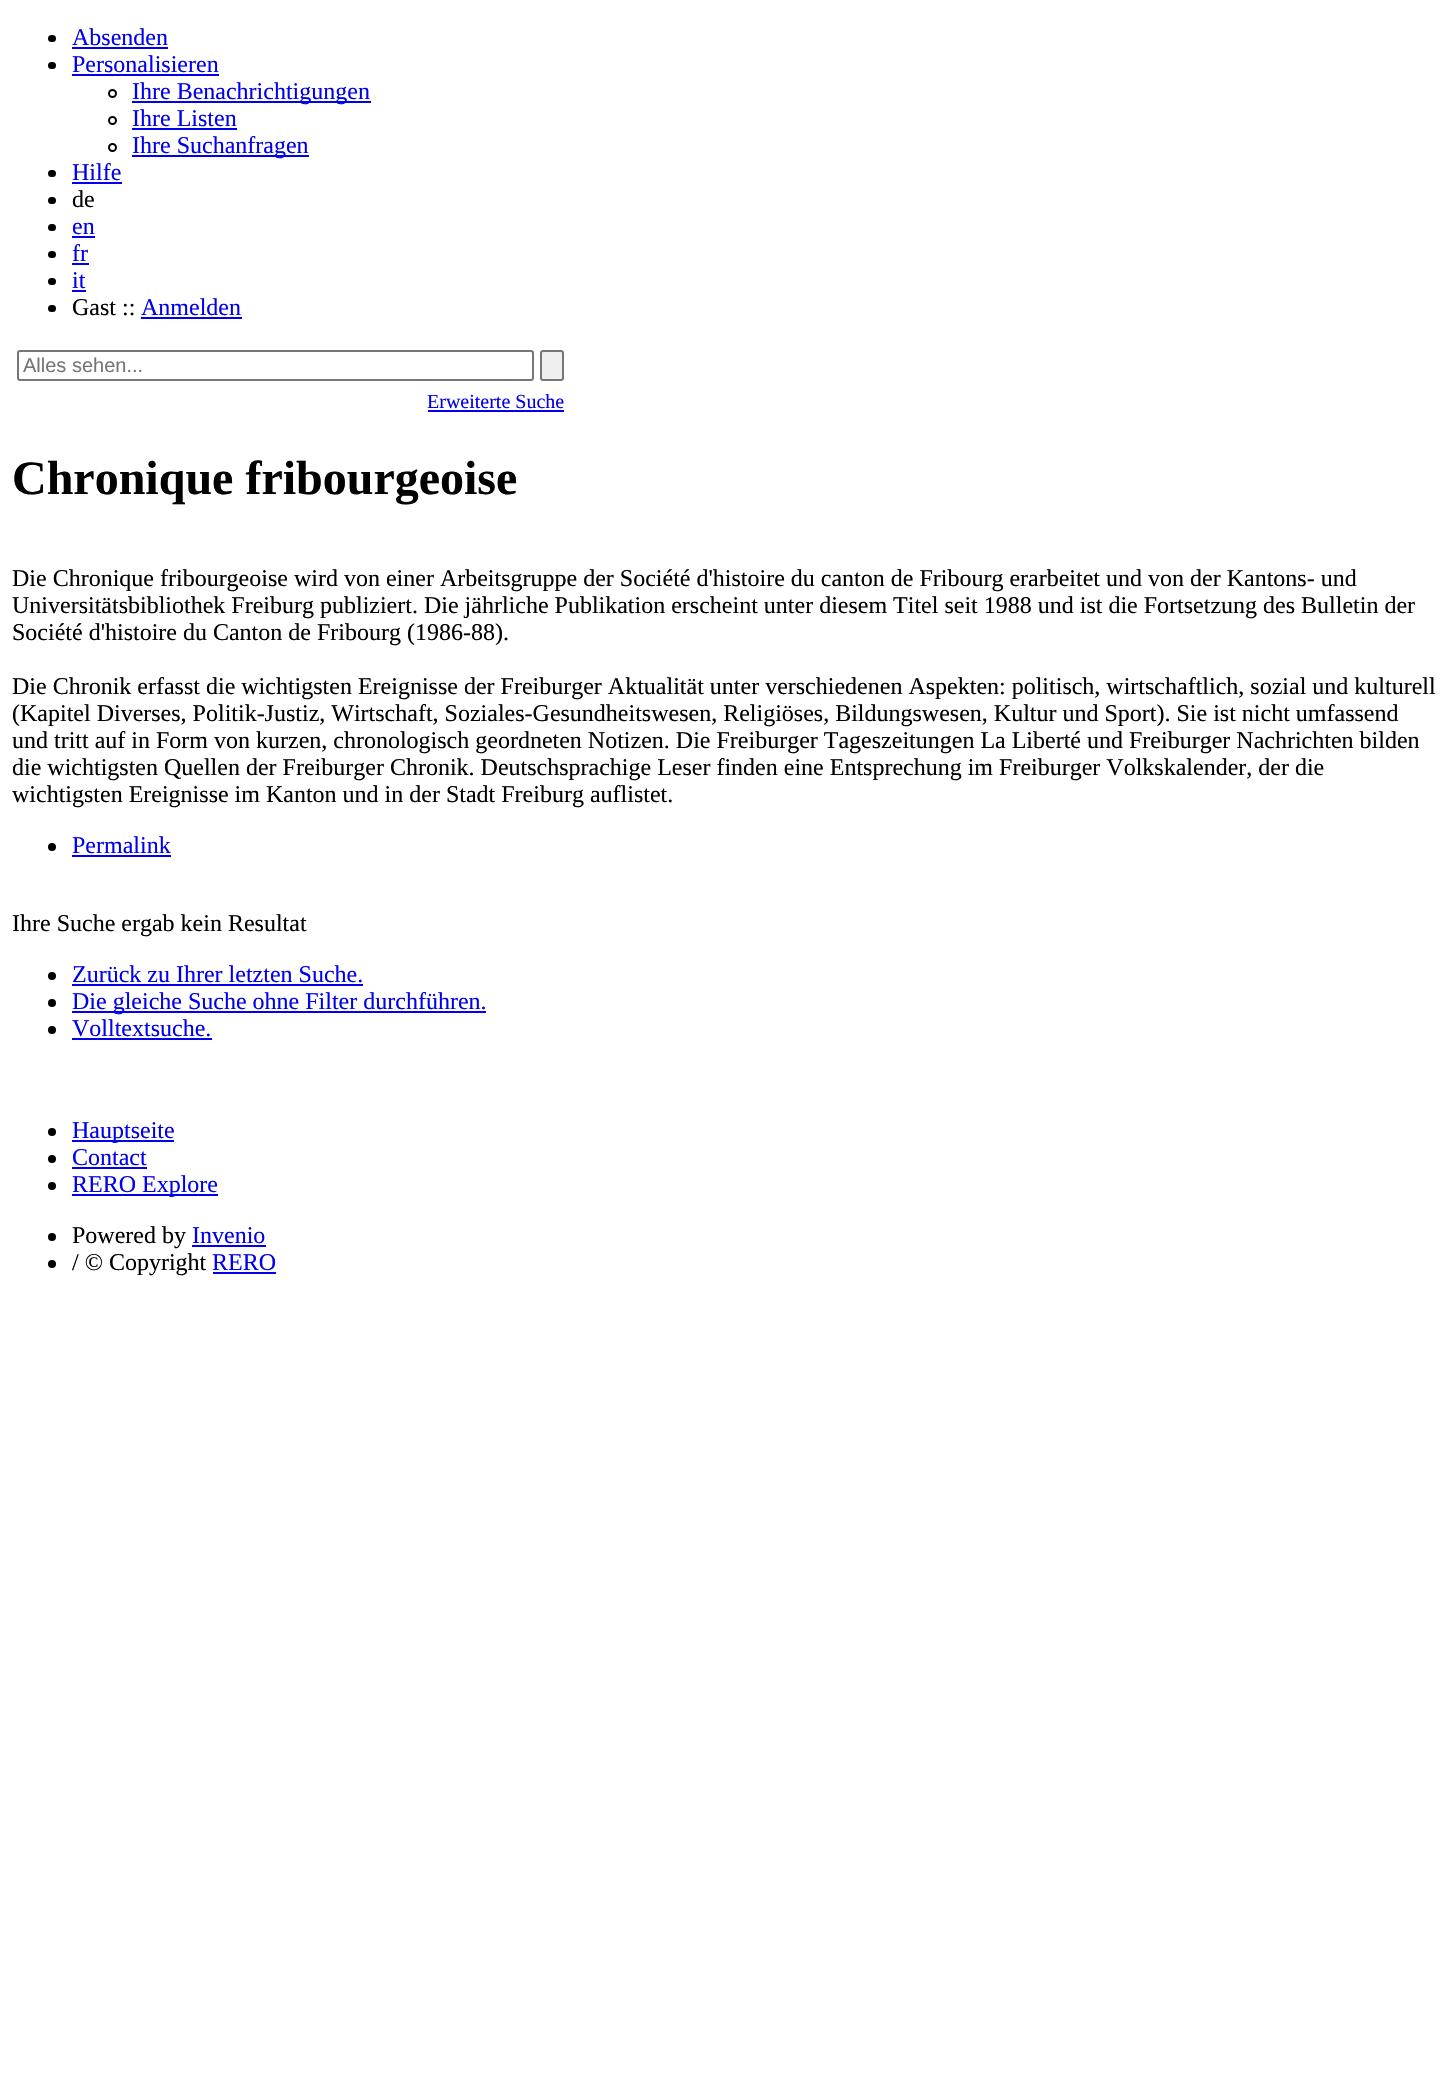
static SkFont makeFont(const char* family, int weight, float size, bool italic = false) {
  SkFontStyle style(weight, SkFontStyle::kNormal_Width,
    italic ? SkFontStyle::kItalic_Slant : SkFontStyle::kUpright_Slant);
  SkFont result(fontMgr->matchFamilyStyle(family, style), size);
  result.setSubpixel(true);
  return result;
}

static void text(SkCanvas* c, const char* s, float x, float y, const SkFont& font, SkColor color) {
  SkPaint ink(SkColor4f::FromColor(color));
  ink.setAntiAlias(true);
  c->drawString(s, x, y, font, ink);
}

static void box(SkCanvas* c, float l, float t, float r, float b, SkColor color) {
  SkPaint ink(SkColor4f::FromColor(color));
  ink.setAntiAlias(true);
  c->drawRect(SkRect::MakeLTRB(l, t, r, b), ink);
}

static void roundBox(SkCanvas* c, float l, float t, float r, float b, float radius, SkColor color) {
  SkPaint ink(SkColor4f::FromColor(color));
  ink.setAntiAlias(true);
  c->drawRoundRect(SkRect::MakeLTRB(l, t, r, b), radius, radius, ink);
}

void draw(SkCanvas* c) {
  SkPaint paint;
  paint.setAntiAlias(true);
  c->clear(0xffffffff);
  roundBox(c, 48, 35, 56, 42, 3.5f, 0xff000000);
  SkFont face1 = makeFont("Liberation Serif", 400, 24);
  text(c, "Absenden", 72, 45, face1, 0xff0000ee);
  box(c, 72, 47, 168, 49, 0xff0000ee);
  roundBox(c, 48, 62, 56, 69, 3.5f, 0xff000000);
  text(c, "Personalisieren", 72, 72, face1, 0xff0000ee);
  box(c, 72, 74, 219, 76, 0xff0000ee);
  paint.setStyle(SkPaint::kStroke_Style);
  paint.setStrokeWidth(2);
  paint.setColor(0xff000000);
  c->drawCircle(112.5f, 93.5f, 3.5f, paint);
  box(c, 132, 101, 371, 103, 0xff0000ee);
  text(c, "Ihre Benachrichtigungen", 132, 99, face1, 0xff0000ee);
  c->drawCircle(112.5f, 120.5f, 3.5f, paint);
  text(c, "Ihre Listen", 132, 126, face1, 0xff0000ee);
  box(c, 132, 128, 237, 130, 0xff0000ee);
  c->drawCircle(112.5f, 147.5f, 3.5f, paint);
  box(c, 132, 155, 309, 157, 0xff0000ee);
  text(c, "Ihre Suchanfragen", 132, 153, face1, 0xff0000ee);
  roundBox(c, 48, 170, 56, 177, 3.5f, 0xff000000);
  text(c, "Hilfe", 72, 180, face1, 0xff0000ee);
  box(c, 72, 182, 122, 184, 0xff0000ee);
  roundBox(c, 48, 197, 56, 204, 3.5f, 0xff000000);
  text(c, "de", 72, 207, face1, 0xff000000);
  roundBox(c, 48, 224, 56, 231, 3.5f, 0xff000000);
  text(c, "en", 72, 234, face1, 0xff0000ee);
  box(c, 72, 236, 95, 238, 0xff0000ee);
  roundBox(c, 48, 251, 56, 258, 3.5f, 0xff000000);
  text(c, "fr", 72, 261, face1, 0xff0000ee);
  box(c, 72, 263, 89, 265, 0xff0000ee);
  roundBox(c, 48, 278, 56, 285, 3.5f, 0xff000000);
  text(c, "it", 72, 288, face1, 0xff0000ee);
  box(c, 72, 290, 86, 292, 0xff0000ee);
  roundBox(c, 48, 305, 56, 312, 3.5f, 0xff000000);
  text(c, "Gast ::", 72, 315, face1, 0xff000000);
  text(c, "Anmelden", 141, 315, face1, 0xff0000ee);
  box(c, 141, 317, 242, 319, 0xff0000ee);
  paint.setColor(0xff767676);
  c->drawRoundRect(SkRect::MakeLTRB(18, 351, 533, 380), 2, 2, paint);
  SkFont face2 = makeFont("Liberation Sans", 400, 20);
  text(c, "Alles sehen...", 23, 372, face2, 0xff757575);
  paint.setStyle(SkPaint::kFill_Style);
  paint.setColor(0xffefefef);
  c->drawRoundRect(SkRect::MakeLTRB(541, 351, 563, 380), 2, 2, paint);
  paint.setStyle(SkPaint::kStroke_Style);
  paint.setColor(0xff767676);
  c->drawRoundRect(SkRect::MakeLTRB(541, 351, 563, 380), 2, 2, paint);
  SkFont face3 = makeFont("Liberation Serif", 400, 20);
  text(c, "Erweiterte Suche", 427, 408, face3, 0xff0000ee);
  box(c, 428, 410, 564, 412, 0xff0000ee);
  SkFont face4 = makeFont("Liberation Serif", 700, 48);
  text(c, "Chronique fribourgeoise", 12, 494, face4, 0xff000000);
  text(c, "Die Chronique fribourgeoise wird von einer Arbeitsgruppe der Société d'histoire du canton de Fribourg erarbeitet und von der Kantons- und", 12, 586, face1, 0xff000000);
  text(c, "Universitätsbibliothek Freiburg publiziert. Die jährliche Publikation erscheint unter diesem Titel seit 1988 und ist die Fortsetzung des Bulletin der", 12, 613, face1, 0xff000000);
  text(c, "Société d'histoire du Canton de Fribourg (1986-88).", 12, 640, face1, 0xff000000);
  text(c, "Die Chronik erfasst die wichtigsten Ereignisse der Freiburger Aktualität unter verschiedenen Aspekten: politisch, wirtschaftlich, sozial und kulturell", 12, 694, face1, 0xff000000);
  text(c, "(Kapitel Diverses, Politik-Justiz, Wirtschaft, Soziales-Gesundheitswesen, Religiöses, Bildungswesen, Kultur und Sport). Sie ist nicht umfassend", 12, 721, face1, 0xff000000);
  text(c, "und tritt auf in Form von kurzen, chronologisch geordneten Notizen. Die Freiburger Tageszeitungen La Liberté und Freiburger Nachrichten bilden", 12, 748, face1, 0xff000000);
  text(c, "die wichtigsten Quellen der Freiburger Chronik. Deutschsprachige Leser finden eine Entsprechung im Freiburger Volkskalender, der die", 12, 775, face1, 0xff000000);
  text(c, "wichtigsten Ereignisse im Kanton und in der Stadt Freiburg auflistet.", 12, 802, face1, 0xff000000);
  paint.setStyle(SkPaint::kFill_Style);
  paint.setColor(0xff000000);
  c->drawCircle(52, 847, 4, paint);
  text(c, "Permalink", 72, 853, face1, 0xff0000ee);
  box(c, 72, 855, 171, 857, 0xff0000ee);
  text(c, "Ihre Suche ergab kein Resultat", 12, 931, face1, 0xff000000);
  c->drawCircle(52, 976, 4, paint);
  text(c, "Zurück zu Ihrer letzten Suche.", 72, 982, face1, 0xff0000ee);
  box(c, 72, 984, 363, 986, 0xff0000ee);
  c->drawCircle(52, 1003, 4, paint);
  box(c, 72, 1011, 486, 1013, 0xff0000ee);
  text(c, "Die gleiche Suche ohne Filter durchführen.", 72, 1009, face1, 0xff0000ee);
  c->drawCircle(52, 1030, 4, paint);
  text(c, "Volltextsuche.", 72, 1036, face1, 0xff0000ee);
  box(c, 72, 1038, 212, 1040, 0xff0000ee);
  c->drawCircle(52, 1132, 4, paint);
  box(c, 72, 1140, 174, 1142, 0xff0000ee);
  text(c, "Hauptseite", 72, 1138, face1, 0xff0000ee);
  c->drawCircle(52, 1159, 4, paint);
  text(c, "Contact", 72, 1165, face1, 0xff0000ee);
  box(c, 72, 1167, 147, 1169, 0xff0000ee);
  c->drawCircle(52, 1186, 4, paint);
  box(c, 72, 1194, 218, 1196, 0xff0000ee);
  text(c, "RERO Explore", 72, 1192, face1, 0xff0000ee);
  c->drawCircle(52, 1237, 4, paint);
  text(c, "Powered by", 72, 1243, face1, 0xff000000);
  text(c, "Invenio", 192, 1243, face1, 0xff0000ee);
  box(c, 192, 1245, 266, 1247, 0xff0000ee);
  c->drawCircle(52, 1264, 4, paint);
  text(c, "/ © Copyright", 72, 1270, face1, 0xff000000);
  text(c, "RERO", 212, 1270, face1, 0xff0000ee);
  box(c, 213, 1272, 276, 1274, 0xff0000ee);
}
